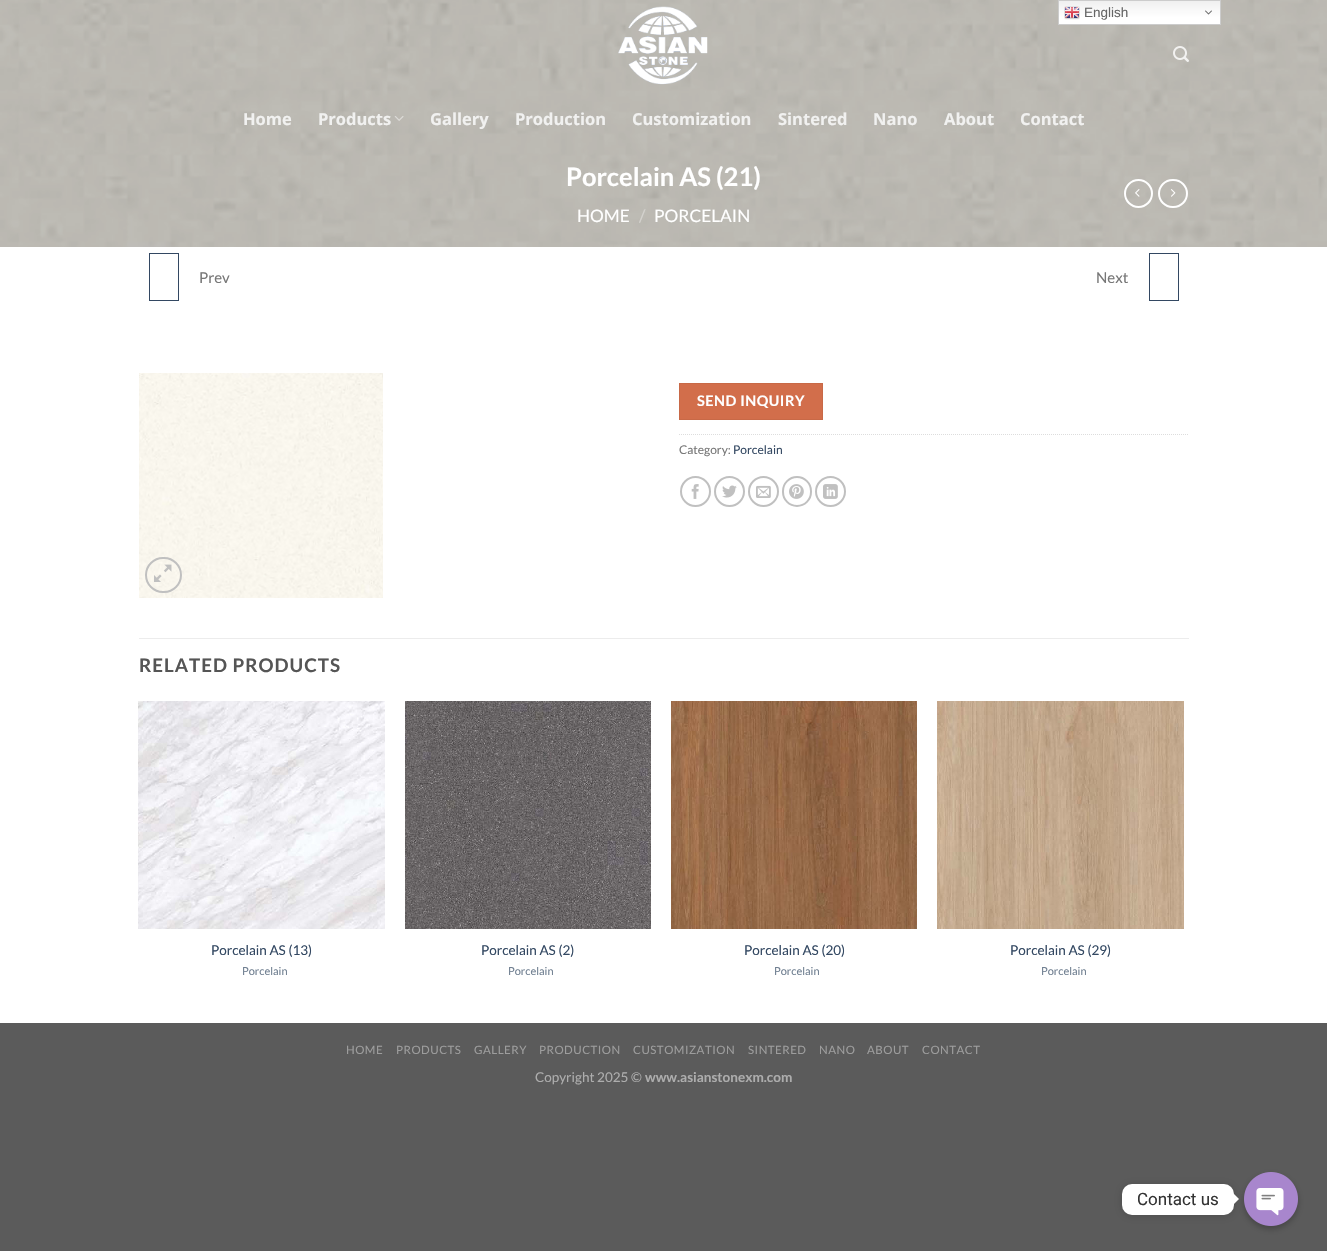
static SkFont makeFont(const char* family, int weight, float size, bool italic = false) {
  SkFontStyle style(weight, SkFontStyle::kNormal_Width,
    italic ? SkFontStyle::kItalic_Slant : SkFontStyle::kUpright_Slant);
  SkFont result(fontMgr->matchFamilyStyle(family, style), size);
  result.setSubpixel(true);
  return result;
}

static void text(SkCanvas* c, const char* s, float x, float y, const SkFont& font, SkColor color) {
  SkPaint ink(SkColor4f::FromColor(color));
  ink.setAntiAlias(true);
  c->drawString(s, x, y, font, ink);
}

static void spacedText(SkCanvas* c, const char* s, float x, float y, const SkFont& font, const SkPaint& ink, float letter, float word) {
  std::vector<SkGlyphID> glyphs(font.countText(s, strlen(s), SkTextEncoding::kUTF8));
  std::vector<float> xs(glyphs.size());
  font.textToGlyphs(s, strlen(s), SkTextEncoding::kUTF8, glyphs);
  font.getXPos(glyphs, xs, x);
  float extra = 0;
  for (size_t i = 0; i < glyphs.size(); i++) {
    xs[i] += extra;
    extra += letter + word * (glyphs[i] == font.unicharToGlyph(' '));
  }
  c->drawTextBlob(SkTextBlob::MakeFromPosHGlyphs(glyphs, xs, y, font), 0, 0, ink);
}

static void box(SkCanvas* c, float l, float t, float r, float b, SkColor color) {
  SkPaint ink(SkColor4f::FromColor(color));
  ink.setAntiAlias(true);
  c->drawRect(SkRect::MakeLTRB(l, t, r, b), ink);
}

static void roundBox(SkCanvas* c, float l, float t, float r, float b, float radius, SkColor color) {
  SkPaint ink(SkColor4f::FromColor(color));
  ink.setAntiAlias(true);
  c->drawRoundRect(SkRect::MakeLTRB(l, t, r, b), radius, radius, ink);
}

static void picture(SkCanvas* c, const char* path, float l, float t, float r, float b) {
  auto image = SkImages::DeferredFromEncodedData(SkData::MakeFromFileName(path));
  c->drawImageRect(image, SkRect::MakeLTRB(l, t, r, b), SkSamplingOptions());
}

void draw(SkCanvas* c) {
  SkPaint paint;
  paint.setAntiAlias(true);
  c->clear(0xff5b5b5b);
  picture(c, "img_06.png", 0, 0, 1327, 247);
  {
    const SkColor colors[] = {0xffefefef, 0xffffffff};
    const float stops[] = {0, 0.7f};
    const SkPoint ends[] = {{1140, 0}, {1140, 25}};
    paint.setShader(SkGradientShader::MakeLinear(ends, colors, stops, 2, SkTileMode::kClamp));
    paint.setAlpha(255);
  }
  c->drawRect(SkRect::MakeLTRB(1059, 1, 1220, 24), paint);
  paint.setStyle(SkPaint::kStroke_Style);
  paint.setStrokeWidth(1);
  paint.setShader(nullptr);
  paint.setColor(0xffcccccc);
  c->drawRect(SkRect::MakeLTRB(1058.5f, 0.5f, 1220.5f, 24.5f), paint);
  picture(c, "img_01.png", 1064, 6, 1080, 20);
  SkFont face1 = makeFont("Liberation Sans", 400, 13.5f);
  text(c, "English", 1084, 17, face1, 0xff666666);
  picture(c, "img_02.png", 1205, 10, 1212, 15);
  box(c, 0, 247, 1327, 1023, 0xffffffff);
  picture(c, "img_03.png", 618, 6, 708, 85);
  picture(c, "img_04.png", 1173, 46, 1189, 62);
  SkFont face2 = makeFont("Open Sans", 700, 16.5f);
  text(c, "Home", 243, 125, face2, 0xfff1f1f0);
  text(c, "Products", 318, 125, face2, 0xfff1f1f0);
  picture(c, "img_05.png", 394, 116, 404, 121);
  text(c, "Gallery", 430, 125, face2, 0xfff1f1f0);
  text(c, "Production", 515, 125, face2, 0xfff1f1f0);
  text(c, "Customization", 632, 125, face2, 0xfff1f1f0);
  text(c, "Sintered", 778, 125, face2, 0xfff1f1f0);
  text(c, "Nano", 873, 125, face2, 0xfff1f1f0);
  text(c, "About", 944, 125, face2, 0xfff1f1f0);
  text(c, "Contact", 1020, 125, face2, 0xfff1f1f0);
  SkFont face3 = makeFont("Lato", 700, 25.5f);
  text(c, "Porcelain AS (21)", 566, 186, face3, 0xffffffff);
  SkFont face4 = makeFont("Lato", 400, 17.25f);
  text(c, "HOME", 577, 222, face4, 0xffffffff);
  text(c, "/", 639, 222, face4, 0xffd4d2ce);
  text(c, "PORCELAIN", 654, 222, face4, 0xffffffff);
  paint.setStrokeWidth(2);
  paint.setColor(0xffffffff);
  c->drawCircle(1138.5f, 193.5f, 13.5f, paint);
  picture(c, "img_07.png", 1135, 189, 1140, 197);
  c->drawRoundRect(SkRect::MakeLTRB(1159, 180, 1187, 207), 13.5f, 13.5f, paint);
  picture(c, "img_08.png", 1171, 189, 1176, 197);
  paint.setStrokeWidth(1);
  paint.setColor(0xff334862);
  c->drawRect(SkRect::MakeLTRB(149.5f, 253.5f, 178.5f, 300.5f), paint);
  SkFont face5 = makeFont("Lato", 400, 15);
  text(c, "Prev", 199, 283, face5, 0xff777777);
  text(c, "Next", 1096, 283, face5, 0xff777777);
  c->drawRect(SkRect::MakeLTRB(1149.5f, 253.5f, 1178.5f, 300.5f), paint);
  picture(c, "img_09.png", 139, 373, 383, 598);
  paint.setStrokeWidth(2);
  paint.setColor(0xffc0c0c0);
  c->drawRoundRect(SkRect::MakeLTRB(146, 558, 181, 592), 17, 17, paint);
  picture(c, "img_10.png", 154, 564, 172, 582);
  paint.setStyle(SkPaint::kFill_Style);
  paint.setColor(0xffd26e4b);
  c->drawRect(SkRect::MakeLTRB(679.5f, 383.5f, 822.5f, 419.5f), paint);
  paint.setStyle(SkPaint::kStroke_Style);
  paint.setStrokeWidth(1);
  paint.setColor(0xffc86947);
  c->drawRect(SkRect::MakeLTRB(679.5f, 383.5f, 822.5f, 419.5f), paint);
  SkFont face6 = makeFont("Lato", 700, 14.5f);
  paint.setStyle(SkPaint::kFill_Style);
  paint.setColor(0xffffffff);
  spacedText(c, "SEND INQUIRY", 697, 406, face6, paint, 0.5f, 0);
  paint.setStyle(SkPaint::kStroke_Style);
  paint.setColor(0xffdddddd);
  paint.setPathEffect(SkDashPathEffect::Make({{1, 1}}, 0));
  c->drawPath(SkPathBuilder().moveTo(679, 434.5f).lineTo(1189, 434.5f).detach(), paint);
  paint.setPathEffect(nullptr);
  SkFont face7 = makeFont("Lato", 400, 12);
  text(c, "Category:", 679, 454, face7, 0xff777777);
  text(c, "Porcelain", 733, 454, face7, 0xff334862);
  paint.setStrokeWidth(2);
  paint.setColor(0xffc0c0c0);
  c->drawCircle(695.5f, 491.5f, 14.5f, paint);
  picture(c, "img_11.png", 691, 484, 699, 499);
  c->drawCircle(729.5f, 491.5f, 14.5f, paint);
  picture(c, "img_12.png", 722, 485, 737, 498);
  c->drawCircle(763.5f, 491.5f, 14.5f, paint);
  picture(c, "img_13.png", 756, 485, 771, 498);
  c->drawRoundRect(SkRect::MakeLTRB(783, 477, 811, 506), 14, 14, paint);
  picture(c, "img_14.png", 789, 484, 804, 499);
  c->drawCircle(830.5f, 491.5f, 14.5f, paint);
  picture(c, "img_15.png", 823, 484, 838, 499);
  box(c, 139, 638, 1189, 639, 0xffececec);
  SkFont face8 = makeFont("Lato", 700, 18.75f);
  paint.setStyle(SkPaint::kFill_Style);
  paint.setColor(0xff555555);
  spacedText(c, "RELATED PRODUCTS", 139, 672, face8, paint, 1, 0);
  picture(c, "img_16.png", 138, 701, 385, 929);
  SkFont face9 = makeFont("Lato", 400, 13.5f);
  text(c, "Porcelain AS (13)", 211, 955, face9, 0xff334862);
  SkFont face10 = makeFont("Lato", 400, 11);
  text(c, "Porcelain", 242, 975, face10, 0xff707f91);
  picture(c, "img_17.png", 405, 701, 651, 929);
  text(c, "Porcelain AS (2)", 481, 955, face9, 0xff334862);
  text(c, "Porcelain", 508, 975, face10, 0xff707f91);
  picture(c, "img_18.png", 671, 701, 917, 929);
  text(c, "Porcelain AS (20)", 744, 955, face9, 0xff334862);
  text(c, "Porcelain", 774, 975, face10, 0xff707f91);
  picture(c, "img_19.png", 937, 701, 1184, 929);
  text(c, "Porcelain AS (29)", 1010, 955, face9, 0xff334862);
  text(c, "Porcelain", 1041, 975, face10, 0xff707f91);
  SkFont face11 = makeFont("Lato", 400, 11.5f);
  paint.setColor(0xff9d9d9d);
  spacedText(c, "HOME", 346, 1054, face11, paint, 0.5f, 0);
  spacedText(c, "PRODUCTS", 396, 1054, face11, paint, 0.5f, 0);
  spacedText(c, "GALLERY", 474, 1054, face11, paint, 0.5f, 0);
  spacedText(c, "PRODUCTION", 539, 1054, face11, paint, 0.5f, 0);
  spacedText(c, "CUSTOMIZATION", 633, 1054, face11, paint, 0.5f, 0);
  spacedText(c, "SINTERED", 748, 1054, face11, paint, 0.5f, 0);
  spacedText(c, "NANO", 819, 1054, face11, paint, 0.5f, 0);
  spacedText(c, "ABOUT", 867, 1054, face11, paint, 0.5f, 0);
  spacedText(c, "CONTACT", 922, 1054, face11, paint, 0.5f, 0);
  text(c, "Copyright 2025 ©", 535, 1082, face9, 0xffadadad);
  SkFont face12 = makeFont("Lato", 700, 13.5f);
  text(c, "www.asianstonexm.com", 645, 1082, face12, 0xffadadad);
  paint.setColor(0x26000000);
  paint.setMaskFilter(SkMaskFilter::MakeBlur(kNormal_SkBlurStyle, 4));
  c->drawRoundRect(SkRect::MakeLTRB(1122, 1185, 1234, 1216), 10, 10, paint);
  paint.setMaskFilter(nullptr);
  roundBox(c, 1122, 1184, 1234, 1215, 10, 0xffffffff);
  SkFont face13 = makeFont("Roboto", 400, 17);
  text(c, "Contact us", 1137, 1205, face13, 0xff333333);
  paint.setColor(0xffffffff);
  c->drawPath(SkPathBuilder().moveTo(1234, 1204).lineTo(1234, 1194).lineTo(1239, 1199).close().detach(), paint);
  paint.setColor(0x40000000);
  paint.setMaskFilter(SkMaskFilter::MakeBlur(kNormal_SkBlurStyle, 3));
  c->drawRoundRect(SkRect::MakeLTRB(1244, 1175, 1298, 1229), 27, 27, paint);
  paint.setMaskFilter(nullptr);
  picture(c, "img_20.png", 1244, 1172, 1298, 1226);
}
